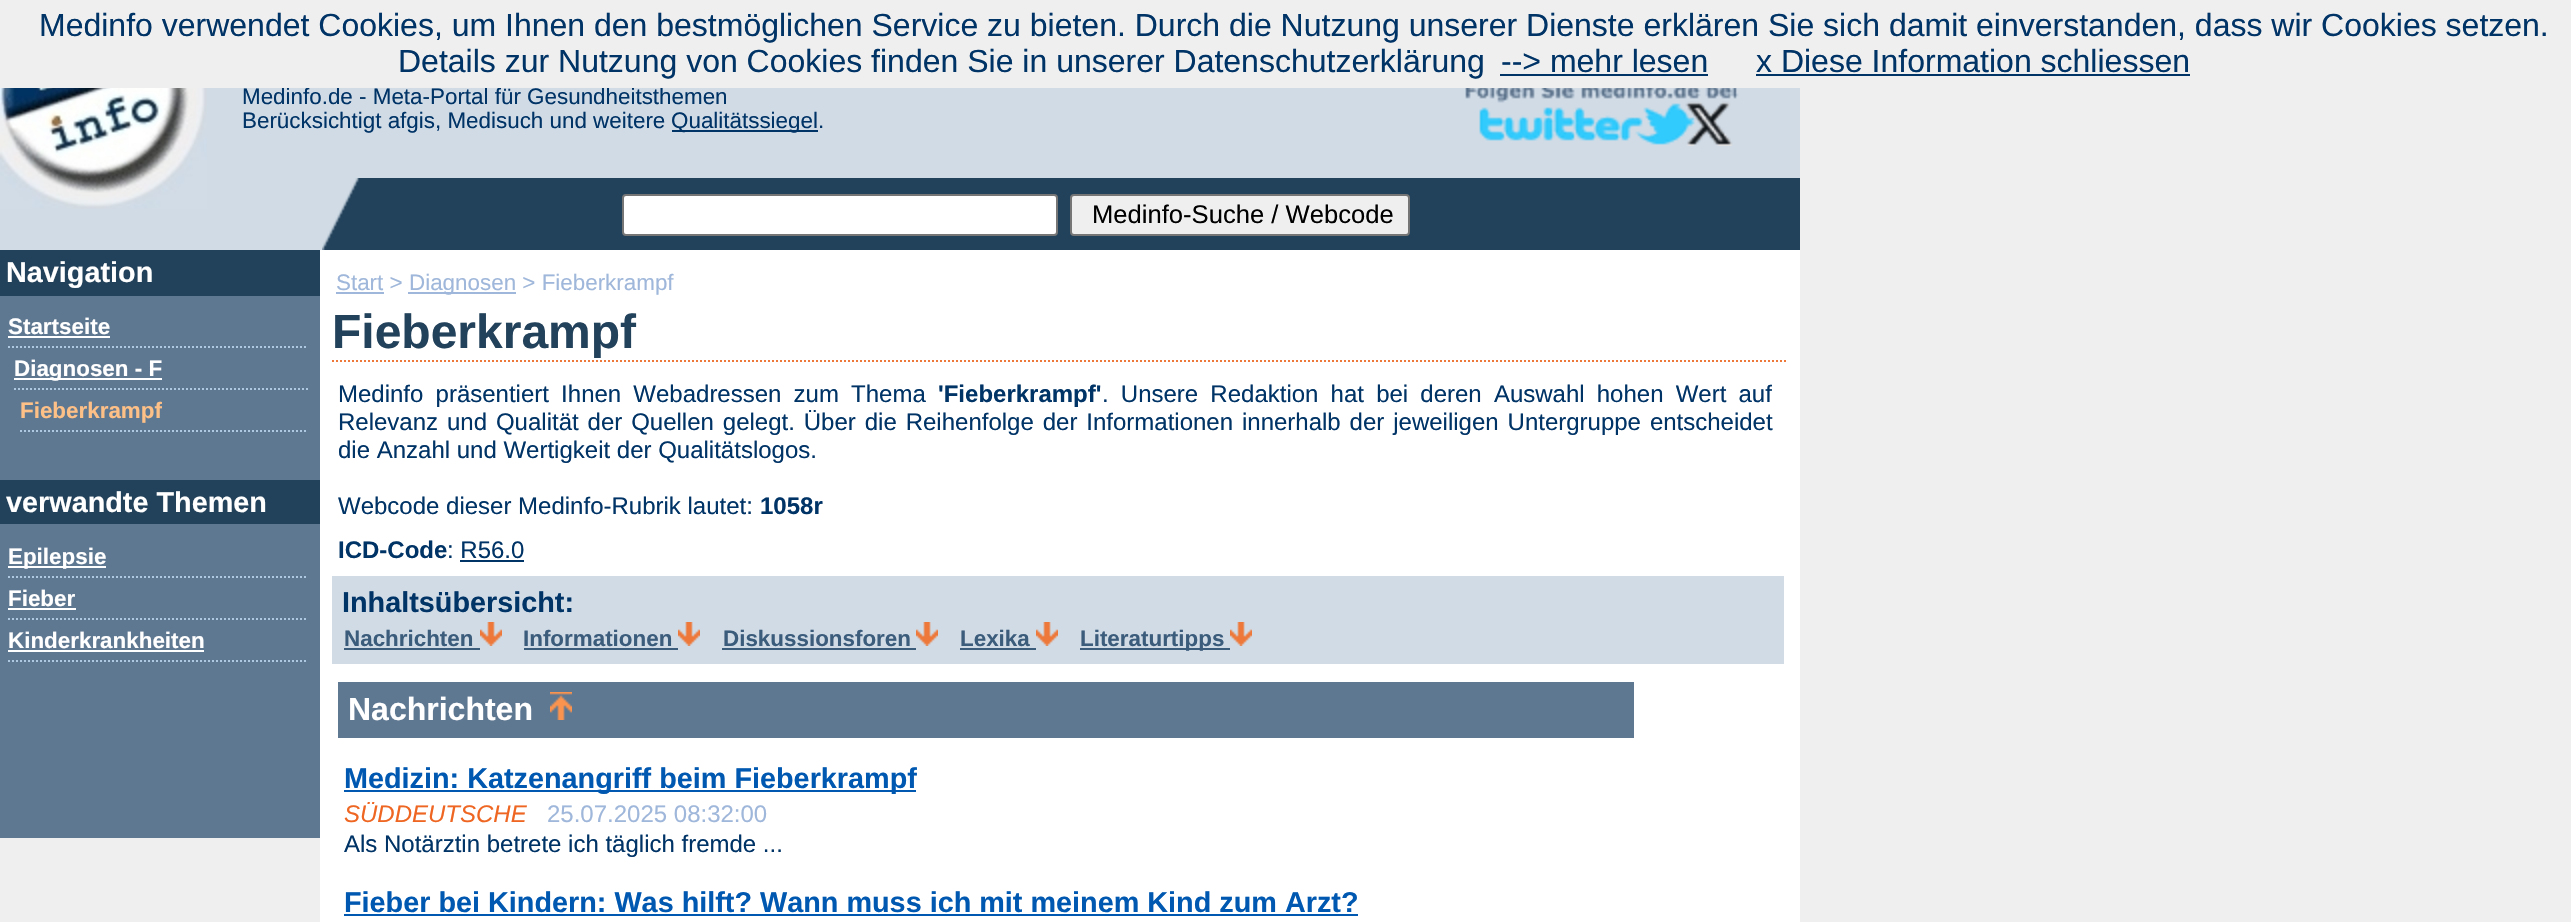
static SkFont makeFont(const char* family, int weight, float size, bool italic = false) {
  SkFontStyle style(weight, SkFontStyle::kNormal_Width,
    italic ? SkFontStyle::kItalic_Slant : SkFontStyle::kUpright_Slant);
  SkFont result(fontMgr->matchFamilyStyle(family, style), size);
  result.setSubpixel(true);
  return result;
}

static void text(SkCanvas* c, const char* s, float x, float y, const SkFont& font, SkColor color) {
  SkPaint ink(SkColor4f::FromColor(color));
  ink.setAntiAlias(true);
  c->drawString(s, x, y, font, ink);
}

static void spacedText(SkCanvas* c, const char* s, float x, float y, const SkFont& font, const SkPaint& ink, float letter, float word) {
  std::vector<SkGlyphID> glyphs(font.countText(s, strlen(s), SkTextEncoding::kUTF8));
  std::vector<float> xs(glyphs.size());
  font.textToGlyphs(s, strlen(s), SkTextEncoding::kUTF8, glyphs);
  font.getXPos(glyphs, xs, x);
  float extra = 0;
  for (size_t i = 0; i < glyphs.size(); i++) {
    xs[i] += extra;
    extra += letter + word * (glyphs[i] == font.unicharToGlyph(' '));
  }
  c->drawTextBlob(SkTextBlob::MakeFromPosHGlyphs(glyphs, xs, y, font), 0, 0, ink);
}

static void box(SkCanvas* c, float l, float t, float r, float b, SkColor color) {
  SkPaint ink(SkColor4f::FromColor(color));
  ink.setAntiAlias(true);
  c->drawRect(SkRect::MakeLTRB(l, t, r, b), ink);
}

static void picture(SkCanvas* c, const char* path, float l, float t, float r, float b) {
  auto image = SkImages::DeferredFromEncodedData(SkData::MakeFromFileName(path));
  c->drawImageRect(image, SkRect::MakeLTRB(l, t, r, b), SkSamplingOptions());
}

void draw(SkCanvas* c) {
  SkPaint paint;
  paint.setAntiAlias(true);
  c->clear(0xffefefef);
  box(c, 210, 88, 1800, 178, 0xffd0dbe6);
  SkFont face1 = makeFont("Liberation Sans", 400, 22.4f);
  text(c, "Medinfo.de - Meta-Portal für Gesundheitsthemen", 242, 104, face1, 0xff003366);
  box(c, 282, 87, 663, 88, 0xffeeeeee);
  SkFont face2 = makeFont("Liberation Sans", 400, 32);
  text(c, "Medinfo verwendet Cookies, um Ihnen den bestmöglichen Service zu bieten. Durch die Nutzung unserer Dienste erklären Sie sich damit einverstanden, dass wir Cookies setzen.", 39, 36, face2, 0xff003366);
  text(c, "Details zur Nutzung von Cookies finden Sie in unserer Datenschutzerklärung", 398, 72, face2, 0xff003366);
  text(c, "--> mehr lesen", 1501, 72, face2, 0xff003366);
  box(c, 1500, 74, 1708, 76, 0xff003366);
  text(c, "x Diese Information schliessen", 1756, 72, face2, 0xff003366);
  box(c, 1756, 74, 2190, 76, 0xff003366);
  box(c, 0, 88, 210, 250, 0xffd0dbe6);
  picture(c, "img_01.png", 0, 88, 207, 209);
  picture(c, "img_02.png", 1465, 88, 1739, 146);
  text(c, "Berücksichtigt afgis, Medisuch und weitere", 242, 128, face1, 0xff003366);
  box(c, 672, 130, 818, 132, 0xff003366);
  text(c, "Qualitätssiegel.", 671, 128, face1, 0xff003366);
  box(c, 360, 178, 1800, 250, 0xff22415a);
  box(c, 210, 178, 322, 250, 0xffd0dbe6);
  box(c, 322, 178, 357, 247, 0xffd0dbe6);
  picture(c, "img_03.png", 322, 178, 360, 250);
  paint.setColor(0xffffffff);
  c->drawRoundRect(SkRect::MakeLTRB(623, 195, 1057, 235), 3, 3, paint);
  paint.setStyle(SkPaint::kStroke_Style);
  paint.setStrokeWidth(2);
  paint.setColor(0xff767676);
  c->drawRoundRect(SkRect::MakeLTRB(623, 195, 1057, 235), 3, 3, paint);
  paint.setStyle(SkPaint::kFill_Style);
  paint.setColor(0xffefefef);
  c->drawRoundRect(SkRect::MakeLTRB(1071, 195, 1409, 235), 3, 3, paint);
  paint.setStyle(SkPaint::kStroke_Style);
  paint.setColor(0xff767676);
  c->drawRoundRect(SkRect::MakeLTRB(1071, 195, 1409, 235), 3, 3, paint);
  SkFont face3 = makeFont("Liberation Sans", 400, 25.6f);
  text(c, "Medinfo-Suche / Webcode", 1092, 223, face3, 0xff000000);
  box(c, 0, 296, 320, 838, 0xff5f7892);
  box(c, 0, 250, 320, 296, 0xff22415a);
  SkFont face4 = makeFont("Liberation Sans", 700, 28.8f);
  text(c, "Navigation", 6, 282, face4, 0xffffffff);
  paint.setColor(0xffafc8e2);
  paint.setPathEffect(SkDashPathEffect::Make({{2, 2}}, 0));
  c->drawPath(SkPathBuilder().moveTo(8, 347).lineTo(308, 347).detach(), paint);
  paint.setPathEffect(nullptr);
  SkFont face5 = makeFont("Liberation Sans", 700, 22.4f);
  text(c, "Startseite", 8, 334, face5, 0xffffffff);
  box(c, 8, 336, 110, 338, 0xffffffff);
  paint.setPathEffect(SkDashPathEffect::Make({{2, 2}}, 0));
  c->drawPath(SkPathBuilder().moveTo(14, 389).lineTo(308, 389).detach(), paint);
  paint.setPathEffect(nullptr);
  box(c, 14, 378, 162, 380, 0xffffffff);
  text(c, "Diagnosen - F", 14, 376, face5, 0xffffffff);
  paint.setPathEffect(SkDashPathEffect::Make({{2, 2}}, 0));
  c->drawPath(SkPathBuilder().moveTo(20, 431).lineTo(308, 431).detach(), paint);
  paint.setPathEffect(nullptr);
  text(c, "Fieberkrampf", 20, 418, face5, 0xfffdc087);
  box(c, 0, 480, 320, 524, 0xff22415a);
  text(c, "verwandte Themen", 6, 512, face4, 0xffffffff);
  paint.setPathEffect(SkDashPathEffect::Make({{2, 2}}, 0));
  c->drawPath(SkPathBuilder().moveTo(8, 577).lineTo(308, 577).detach(), paint);
  paint.setPathEffect(nullptr);
  box(c, 8, 566, 106, 568, 0xffffffff);
  text(c, "Epilepsie", 8, 564, face5, 0xffffffff);
  paint.setPathEffect(SkDashPathEffect::Make({{2, 2}}, 0));
  c->drawPath(SkPathBuilder().moveTo(8, 619).lineTo(308, 619).detach(), paint);
  paint.setPathEffect(nullptr);
  text(c, "Fieber", 8, 606, face5, 0xffffffff);
  box(c, 8, 608, 76, 610, 0xffffffff);
  paint.setPathEffect(SkDashPathEffect::Make({{2, 2}}, 0));
  c->drawPath(SkPathBuilder().moveTo(8, 661).lineTo(308, 661).detach(), paint);
  paint.setPathEffect(nullptr);
  text(c, "Kinderkrankheiten", 8, 648, face5, 0xffffffff);
  box(c, 8, 650, 204, 652, 0xffffffff);
  box(c, 320, 250, 1800, 922, 0xffffffff);
  text(c, "Start >", 336, 290, face1, 0xff9fb7da);
  box(c, 336, 292, 384, 294, 0xff9fb7da);
  box(c, 408, 292, 516, 294, 0xff9fb7da);
  text(c, "Diagnosen > Fieberkrampf", 409, 290, face1, 0xff9fb7da);
  paint.setColor(0xffee7839);
  paint.setPathEffect(SkDashPathEffect::Make({{2, 2}}, 0));
  c->drawPath(SkPathBuilder().moveTo(332, 361).lineTo(1788, 361).detach(), paint);
  paint.setPathEffect(nullptr);
  SkFont face6 = makeFont("Liberation Sans", 700, 48);
  text(c, "Fieberkrampf", 332, 348, face6, 0xff22415a);
  SkFont face7 = makeFont("Liberation Sans", 400, 24);
  paint.setStyle(SkPaint::kFill_Style);
  paint.setColor(0xff003366);
  spacedText(c, "Medinfo präsentiert Ihnen Webadressen zum Thema", 338, 402, face7, paint, 0, 5.5f);
  SkFont face8 = makeFont("Liberation Sans", 700, 24);
  text(c, "'Fieberkrampf'", 938, 402, face8, 0xff003366);
  spacedText(c, ". Unsere Redaktion hat bei deren Auswahl hohen Wert auf", 1102, 402, face7, paint, 0, 5.5f);
  spacedText(c, "Relevanz und Qualität der Quellen gelegt. Über die Reihenfolge der Informationen innerhalb der jeweiligen Untergruppe entscheidet", 338, 430, face7, paint, 0, 2.25f);
  text(c, "die Anzahl und Wertigkeit der Qualitätslogos.", 338, 458, face7, 0xff003366);
  text(c, "Webcode dieser Medinfo-Rubrik lautet:", 338, 514, face7, 0xff003366);
  text(c, "1058r", 760, 514, face8, 0xff003366);
  text(c, "ICD-Code", 338, 558, face8, 0xff003366);
  text(c, ": R56.0", 447, 558, face7, 0xff003366);
  box(c, 460, 560, 524, 562, 0xff003366);
  box(c, 332, 576, 1784, 664, 0xffd0dbe6);
  text(c, "Inhaltsübersicht:", 342, 612, face4, 0xff003366);
  text(c, "Nachrichten", 344, 646, face5, 0xff3c5c7c);
  box(c, 344, 648, 480, 650, 0xff3c5c7c);
  picture(c, "img_04.png", 480, 622, 502, 646);
  text(c, "Informationen", 523, 646, face5, 0xff3c5c7c);
  box(c, 524, 648, 678, 650, 0xff3c5c7c);
  picture(c, "img_04.png", 678, 622, 700, 646);
  text(c, "Diskussionsforen", 723, 646, face5, 0xff3c5c7c);
  box(c, 722, 648, 916, 650, 0xff3c5c7c);
  picture(c, "img_04.png", 916, 622, 938, 646);
  text(c, "Lexika", 960, 646, face5, 0xff3c5c7c);
  box(c, 960, 648, 1036, 650, 0xff3c5c7c);
  picture(c, "img_04.png", 1036, 622, 1058, 646);
  box(c, 1080, 648, 1230, 650, 0xff3c5c7c);
  text(c, "Literaturtipps", 1080, 646, face5, 0xff3c5c7c);
  picture(c, "img_04.png", 1230, 622, 1252, 646);
  box(c, 338, 682, 1634, 738, 0xff5f7892);
  SkFont face9 = makeFont("Liberation Sans", 700, 32);
  text(c, "Nachrichten", 348, 720, face9, 0xffffffff);
  picture(c, "img_05.png", 550, 692, 572, 720);
  box(c, 344, 790, 916, 792, 0xff0058b0);
  text(c, "Medizin: Katzenangriff beim Fieberkrampf", 344, 788, face4, 0xff0058b0);
  SkFont face10 = makeFont("Liberation Sans", 400, 24, true);
  text(c, "SÜDDEUTSCHE", 344, 822, face10, 0xffee6622);
  text(c, "25.07.2025 08:32:00", 547, 822, face7, 0xff9fb7da);
  text(c, "Als Notärztin betrete ich täglich fremde ...", 344, 852, face7, 0xff003366);
  text(c, "Fieber bei Kindern: Was hilft? Wann muss ich mit meinem Kind zum Arzt?", 344, 912, face4, 0xff0058b0);
  box(c, 344, 914, 1358, 916, 0xff0058b0);
}
